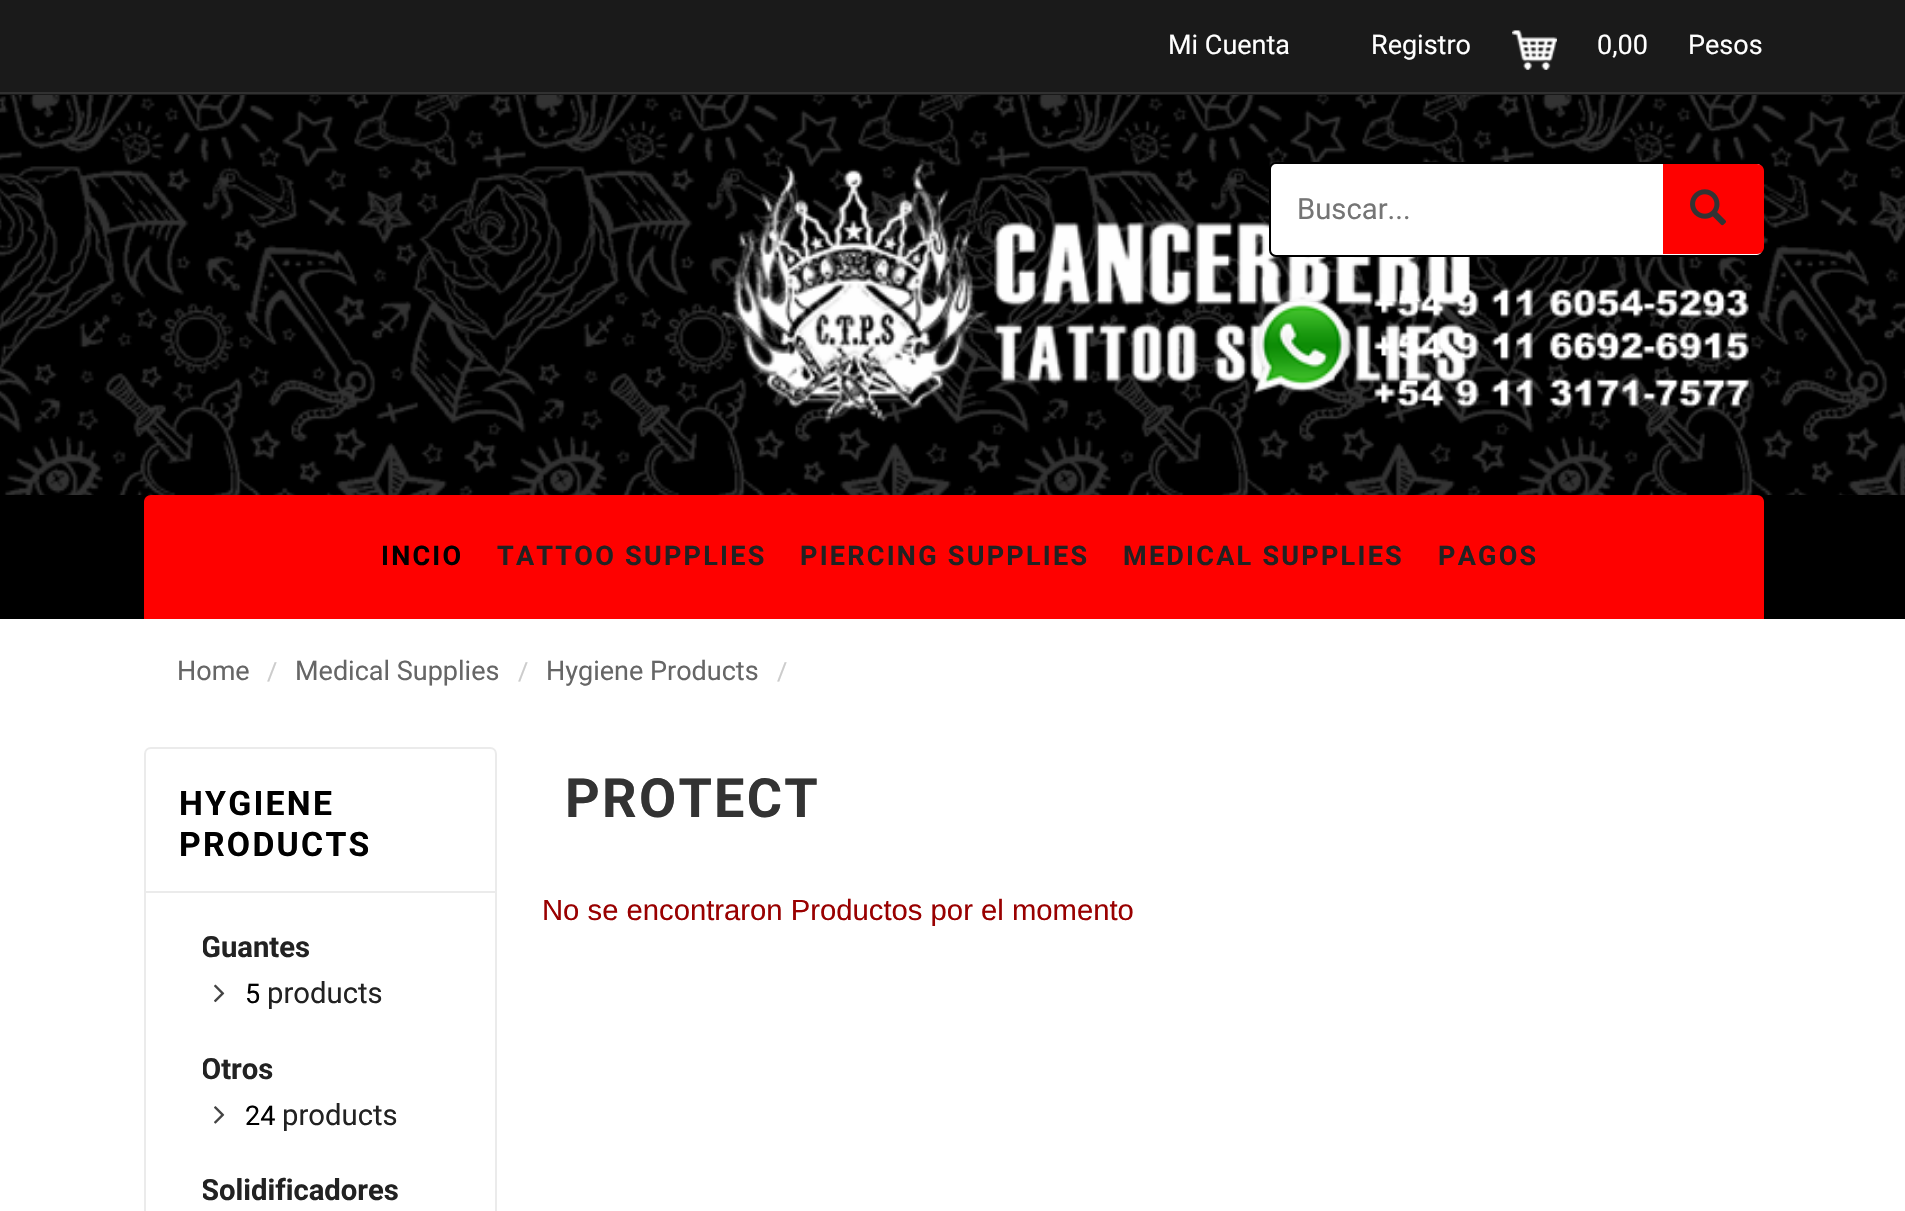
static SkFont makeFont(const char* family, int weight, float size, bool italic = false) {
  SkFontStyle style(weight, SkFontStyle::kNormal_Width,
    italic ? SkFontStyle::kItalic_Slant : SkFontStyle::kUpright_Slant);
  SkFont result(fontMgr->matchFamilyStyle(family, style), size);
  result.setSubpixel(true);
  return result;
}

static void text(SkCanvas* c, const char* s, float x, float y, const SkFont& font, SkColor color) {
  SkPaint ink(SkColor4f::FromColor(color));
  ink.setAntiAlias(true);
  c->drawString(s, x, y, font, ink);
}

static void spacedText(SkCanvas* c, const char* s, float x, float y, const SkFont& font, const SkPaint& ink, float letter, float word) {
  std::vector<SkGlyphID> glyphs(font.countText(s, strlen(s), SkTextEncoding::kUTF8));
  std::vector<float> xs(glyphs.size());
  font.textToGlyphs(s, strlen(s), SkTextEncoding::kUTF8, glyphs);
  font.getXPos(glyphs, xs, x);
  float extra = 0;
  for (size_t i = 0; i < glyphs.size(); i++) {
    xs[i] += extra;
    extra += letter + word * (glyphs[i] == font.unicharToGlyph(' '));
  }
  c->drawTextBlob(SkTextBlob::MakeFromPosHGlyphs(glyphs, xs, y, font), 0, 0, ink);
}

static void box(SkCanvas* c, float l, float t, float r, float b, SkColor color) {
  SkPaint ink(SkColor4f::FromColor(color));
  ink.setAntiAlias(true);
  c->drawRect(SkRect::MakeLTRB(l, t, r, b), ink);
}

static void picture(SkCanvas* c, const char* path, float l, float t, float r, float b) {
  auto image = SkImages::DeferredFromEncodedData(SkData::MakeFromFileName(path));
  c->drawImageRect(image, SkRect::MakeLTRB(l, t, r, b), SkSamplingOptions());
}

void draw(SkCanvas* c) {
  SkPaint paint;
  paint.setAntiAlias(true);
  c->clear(0xffffffff);
  box(c, 0, 95, 1905, 619, 0xff000000);
  picture(c, "img_01.png", 0, 95, 1905, 495);
  box(c, 0, 0, 1905, 95, 0xff1a1a1a);
  box(c, 0, 92, 1905, 94, 0xff313131);
  SkFont face1 = makeFont("Roboto", 400, 27);
  text(c, "Mi Cuenta", 1168, 54, face1, 0xffffffff);
  text(c, "Registro", 1371, 54, face1, 0xffffffff);
  picture(c, "img_02.png", 1512, 30, 1557, 70);
  text(c, "0,00", 1597, 54, face1, 0xffffffff);
  text(c, "Pesos", 1688, 54, face1, 0xffffffff);
  picture(c, "img_03.png", 721, 163, 1470, 424);
  paint.setColor(0xffffffff);
  c->drawRoundRect(SkRect::MakeLTRB(1270, 163, 1763, 256), 6, 6, paint);
  paint.setStyle(SkPaint::kStroke_Style);
  paint.setStrokeWidth(2);
  paint.setColor(0xff000000);
  c->drawRoundRect(SkRect::MakeLTRB(1270, 163, 1763, 256), 6, 6, paint);
  SkFont face2 = makeFont("Roboto", 400, 29.25f);
  text(c, "Buscar...", 1297, 219, face2, 0xff757575);
  paint.setStyle(SkPaint::kFill_Style);
  paint.setColor(0xfffe0100);
  c->drawPath(SkPathBuilder().moveTo(1663, 164).lineTo(1757, 164).cubicTo(1761, 164, 1764, 167, 1764, 171).lineTo(1764, 247).cubicTo(1764, 251, 1761, 254, 1757, 254).lineTo(1663, 254).close().detach(), paint);
  picture(c, "img_04.png", 1690, 189, 1726, 226);
  picture(c, "img_05.png", 1252, 287, 1749, 408);
  c->drawPath(SkPathBuilder().moveTo(151, 495).lineTo(1757, 495).cubicTo(1761, 495, 1764, 498, 1764, 502).lineTo(1764, 619).lineTo(144, 619).lineTo(144, 502).cubicTo(144, 498, 147, 495, 151, 495).close().detach(), paint);
  SkFont face3 = makeFont("Roboto", 700, 27);
  paint.setColor(0xff000000);
  spacedText(c, "INCIO", 381, 565, face3, paint, 2.25f, 0);
  paint.setColor(0xff222222);
  spacedText(c, "TATTOO SUPPLIES", 497, 565, face3, paint, 2.25f, 0);
  spacedText(c, "PIERCING SUPPLIES", 800, 565, face3, paint, 2.25f, 0);
  spacedText(c, "MEDICAL SUPPLIES", 1123, 565, face3, paint, 2.25f, 0);
  spacedText(c, "PAGOS", 1438, 565, face3, paint, 2.25f, 0);
  text(c, "Home", 177, 680, face1, 0xff666666);
  SkFont face4 = makeFont("Roboto", 400, 25);
  text(c, "/", 267, 680, face4, 0xffcccccc);
  text(c, "Medical Supplies", 295, 680, face1, 0xff666666);
  text(c, "/", 518, 680, face4, 0xffcccccc);
  text(c, "Hygiene Products", 546, 680, face1, 0xff666666);
  text(c, "/", 777, 680, face4, 0xffcccccc);
  paint.setStyle(SkPaint::kStroke_Style);
  paint.setColor(0xffebebeb);
  c->drawPath(SkPathBuilder().moveTo(151, 748).lineTo(490, 748).cubicTo(493.5f, 748, 496, 750.5f, 496, 754).lineTo(496, 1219).lineTo(145, 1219).lineTo(145, 754).cubicTo(145, 750.5f, 147.5f, 748, 151, 748).close().detach(), paint);
  box(c, 146, 891, 495, 893, 0xffebebeb);
  SkFont face5 = makeFont("Roboto", 700, 33.75f);
  paint.setStyle(SkPaint::kFill_Style);
  paint.setColor(0xff000000);
  spacedText(c, "HYGIENE", 179, 815, face5, paint, 2.25f, 0);
  spacedText(c, "PRODUCTS", 179, 856, face5, paint, 2.25f, 0);
  c->save();
  c->clipRect(SkRect::MakeLTRB(203, 927, 439, 970));
  SkFont face6 = makeFont("Roboto", 700, 29.25f);
  text(c, "Guantes", 201, 957, face6, 0xff222222);
  c->restore();
  picture(c, "img_06.png", 214, 984, 225, 1003);
  text(c, "5", 245, 1003, face1, 0xff000000);
  text(c, "products", 267, 1003, face2, 0xff222222);
  c->save();
  c->clipRect(SkRect::MakeLTRB(203, 1049, 439, 1091));
  text(c, "Otros", 201, 1079, face6, 0xff222222);
  c->restore();
  picture(c, "img_07.png", 214, 1106, 225, 1124);
  text(c, "24", 245, 1125, face1, 0xff000000);
  text(c, "products", 282, 1125, face2, 0xff222222);
  c->save();
  c->clipRect(SkRect::MakeLTRB(203, 1172, 439, 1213));
  text(c, "Solidificadores", 201, 1200, face6, 0xff222222);
  c->restore();
  SkFont face7 = makeFont("Roboto", 700, 54);
  paint.setColor(0xff333333);
  spacedText(c, "PROTECT", 565, 817, face7, paint, 2.25f, 0);
  SkFont face8 = makeFont("Liberation Sans", 400, 29.25f);
  text(c, "No se encontraron Productos por el momento", 542, 920, face8, 0xff990000);
}
